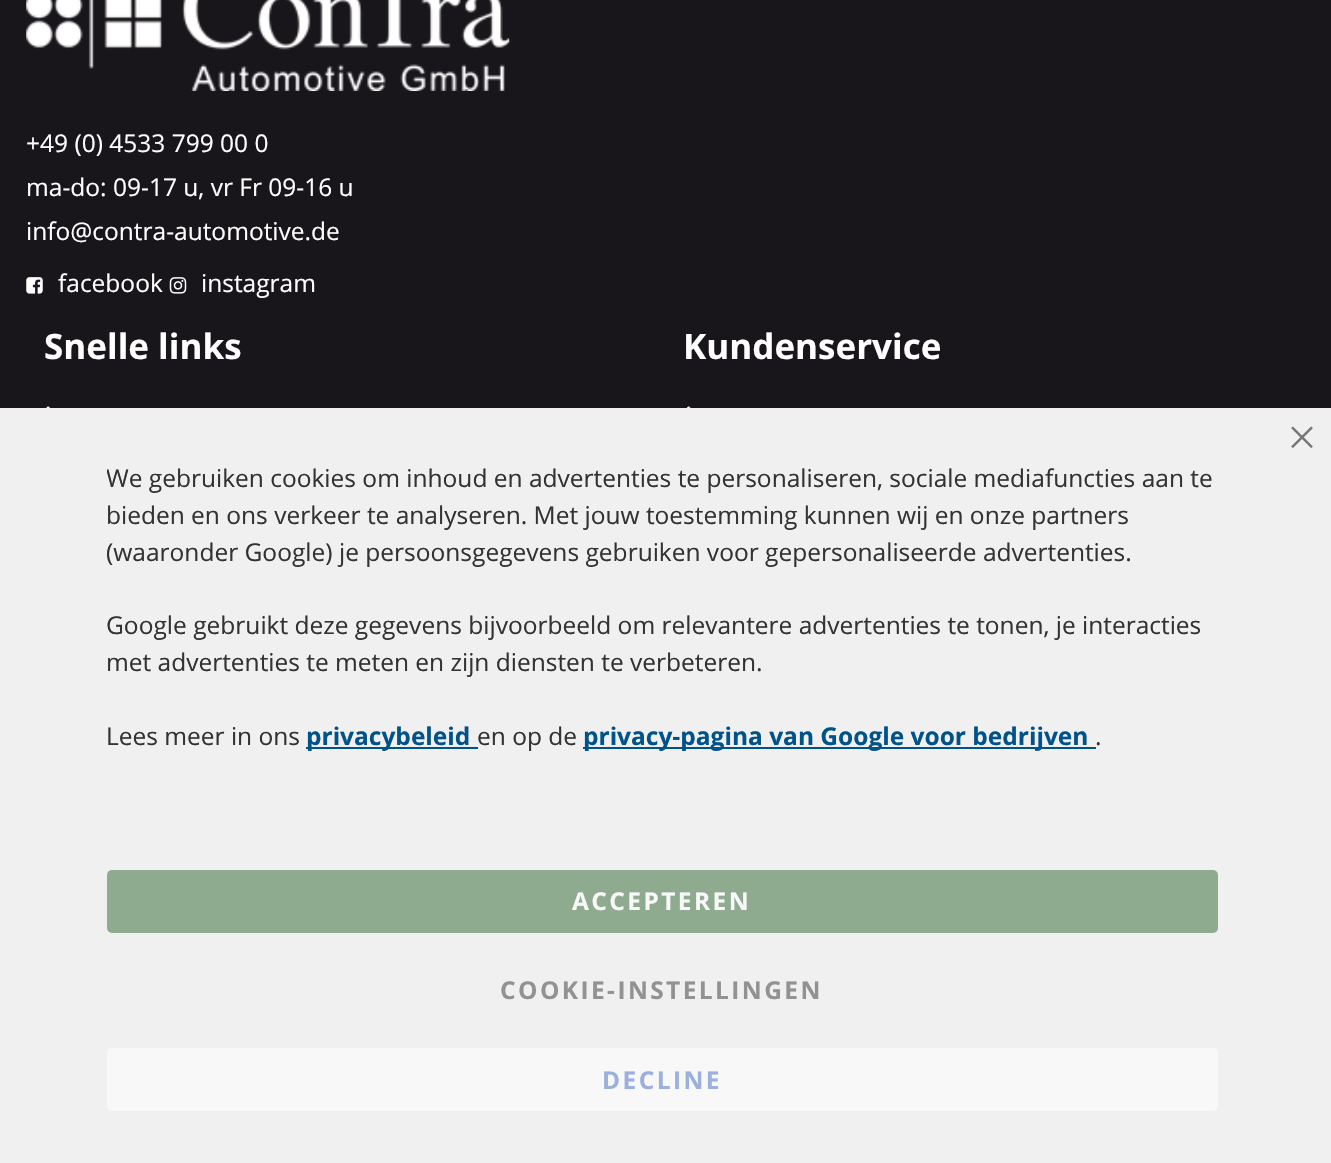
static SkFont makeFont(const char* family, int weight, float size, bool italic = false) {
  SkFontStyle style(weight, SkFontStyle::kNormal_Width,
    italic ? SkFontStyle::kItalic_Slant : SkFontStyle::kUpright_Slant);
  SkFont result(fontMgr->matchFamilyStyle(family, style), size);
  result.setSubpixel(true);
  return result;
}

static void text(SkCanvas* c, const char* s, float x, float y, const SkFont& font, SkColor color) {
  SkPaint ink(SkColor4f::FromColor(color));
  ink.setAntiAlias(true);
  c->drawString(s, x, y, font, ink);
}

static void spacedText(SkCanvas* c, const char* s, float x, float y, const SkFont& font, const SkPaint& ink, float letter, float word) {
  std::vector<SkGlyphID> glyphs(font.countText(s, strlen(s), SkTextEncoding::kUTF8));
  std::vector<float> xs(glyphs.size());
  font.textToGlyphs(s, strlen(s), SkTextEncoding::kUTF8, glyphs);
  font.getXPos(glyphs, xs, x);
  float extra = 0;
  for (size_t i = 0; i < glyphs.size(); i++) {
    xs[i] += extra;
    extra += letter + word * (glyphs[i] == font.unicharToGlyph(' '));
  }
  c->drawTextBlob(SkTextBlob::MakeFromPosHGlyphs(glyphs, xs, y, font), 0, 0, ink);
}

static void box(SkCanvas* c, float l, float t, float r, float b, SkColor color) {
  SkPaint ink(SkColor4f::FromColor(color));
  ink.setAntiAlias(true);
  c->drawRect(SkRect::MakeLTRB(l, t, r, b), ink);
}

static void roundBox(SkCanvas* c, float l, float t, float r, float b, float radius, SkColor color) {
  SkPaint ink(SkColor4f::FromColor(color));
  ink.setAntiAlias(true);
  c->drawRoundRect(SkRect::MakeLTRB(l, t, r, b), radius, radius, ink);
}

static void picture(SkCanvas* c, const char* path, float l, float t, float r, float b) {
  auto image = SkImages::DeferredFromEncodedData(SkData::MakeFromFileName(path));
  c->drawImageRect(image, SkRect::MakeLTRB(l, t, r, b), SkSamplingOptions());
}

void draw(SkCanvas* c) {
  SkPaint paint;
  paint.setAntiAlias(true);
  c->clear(0xff19161b);
  picture(c, "img_01.png", 26, 0, 510, 91);
  SkFont face1 = makeFont("Open Sans", 400, 24.5f);
  text(c, "+49 (0) 4533 799 00 0", 26, 152, face1, 0xffffffff);
  text(c, "ma-do: 09-17 u, vr Fr 09-16 u", 26, 196, face1, 0xffffffff);
  text(c, "info@contra-automotive.de", 26, 240, face1, 0xffffffff);
  picture(c, "img_02.png", 26, 277, 43, 294);
  text(c, "facebook", 58, 292, face1, 0xffffffff);
  picture(c, "img_03.png", 169, 277, 187, 294);
  text(c, "instagram", 201, 292, face1, 0xffffffff);
  SkFont face2 = makeFont("Open Sans", 700, 35);
  text(c, "Snelle links", 44, 359, face2, 0xffffffff);
  picture(c, "img_04.png", 46, 406, 50, 408);
  text(c, "Kundenservice", 683, 359, face2, 0xffffffff);
  picture(c, "img_05.png", 686, 406, 691, 408);
  box(c, 0, 408, 1331, 1163, 0xfff0f0f0);
  picture(c, "img_06.png", 1291, 426, 1313, 448);
  c->save();
  c->clipRect(SkRect::MakeLTRB(107, 460, 1227, 809));
  text(c, "We gebruiken cookies om inhoud en advertenties te personaliseren, sociale mediafuncties aan te", 106, 487, face1, 0xff333333);
  c->restore();
  text(c, "bieden en ons verkeer te analyseren. Met jouw toestemming kunnen wij en onze partners", 106, 524, face1, 0xff333333);
  text(c, "(waaronder Google) je persoonsgegevens gebruiken voor gepersonaliseerde advertenties.", 106, 561, face1, 0xff333333);
  text(c, "Google gebruikt deze gegevens bijvoorbeeld om relevantere advertenties te tonen, je interacties", 106, 634, face1, 0xff333333);
  text(c, "met advertenties te meten en zijn diensten te verbeteren.", 106, 671, face1, 0xff333333);
  text(c, "Lees meer in ons", 106, 745, face1, 0xff333333);
  box(c, 306, 747, 478, 749, 0xff00528a);
  SkFont face3 = makeFont("Open Sans", 700, 24.5f);
  text(c, "privacybeleid", 306, 745, face3, 0xff00528a);
  text(c, "en op de", 477, 745, face1, 0xff333333);
  box(c, 583, 747, 1096, 749, 0xff00528a);
  text(c, "privacy-pagina van Google voor bedrijven", 583, 745, face3, 0xff00528a);
  text(c, ".", 1095, 745, face1, 0xff333333);
  roundBox(c, 107, 870, 1218, 933, 5, 0xff8eaa8f);
  paint.setColor(0xfff8f8f8);
  spacedText(c, "ACCEPTEREN", 572, 910, face3, paint, 2.4f, 0);
  paint.setColor(0xff929292);
  spacedText(c, "COOKIE-INSTELLINGEN", 500, 999, face3, paint, 2.4f, 0);
  roundBox(c, 107, 1048, 1218, 1111, 5, 0xfff8f8f8);
  paint.setColor(0xff9bb0dd);
  spacedText(c, "DECLINE", 602, 1089, face3, paint, 2.4f, 0);
}
